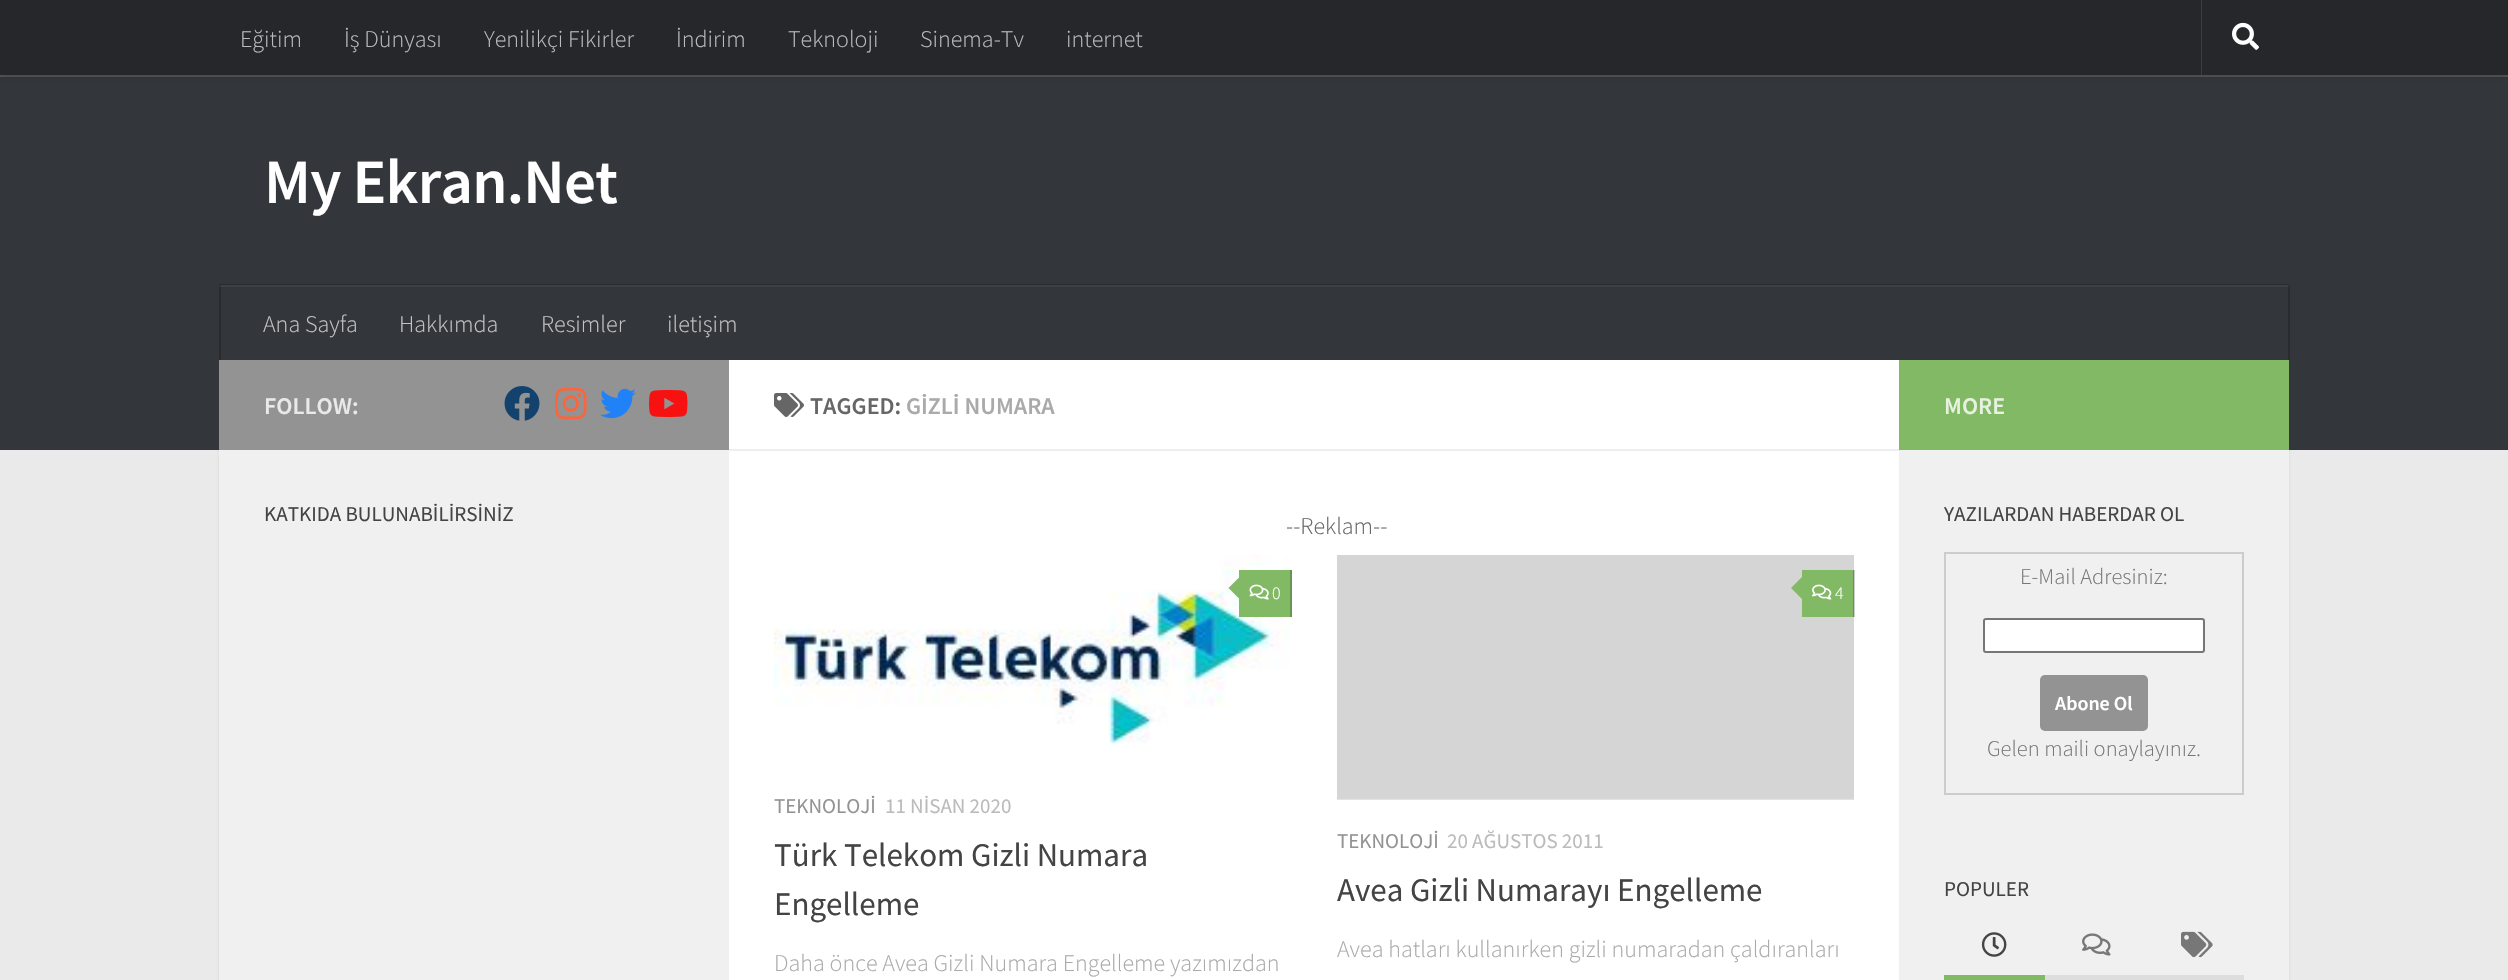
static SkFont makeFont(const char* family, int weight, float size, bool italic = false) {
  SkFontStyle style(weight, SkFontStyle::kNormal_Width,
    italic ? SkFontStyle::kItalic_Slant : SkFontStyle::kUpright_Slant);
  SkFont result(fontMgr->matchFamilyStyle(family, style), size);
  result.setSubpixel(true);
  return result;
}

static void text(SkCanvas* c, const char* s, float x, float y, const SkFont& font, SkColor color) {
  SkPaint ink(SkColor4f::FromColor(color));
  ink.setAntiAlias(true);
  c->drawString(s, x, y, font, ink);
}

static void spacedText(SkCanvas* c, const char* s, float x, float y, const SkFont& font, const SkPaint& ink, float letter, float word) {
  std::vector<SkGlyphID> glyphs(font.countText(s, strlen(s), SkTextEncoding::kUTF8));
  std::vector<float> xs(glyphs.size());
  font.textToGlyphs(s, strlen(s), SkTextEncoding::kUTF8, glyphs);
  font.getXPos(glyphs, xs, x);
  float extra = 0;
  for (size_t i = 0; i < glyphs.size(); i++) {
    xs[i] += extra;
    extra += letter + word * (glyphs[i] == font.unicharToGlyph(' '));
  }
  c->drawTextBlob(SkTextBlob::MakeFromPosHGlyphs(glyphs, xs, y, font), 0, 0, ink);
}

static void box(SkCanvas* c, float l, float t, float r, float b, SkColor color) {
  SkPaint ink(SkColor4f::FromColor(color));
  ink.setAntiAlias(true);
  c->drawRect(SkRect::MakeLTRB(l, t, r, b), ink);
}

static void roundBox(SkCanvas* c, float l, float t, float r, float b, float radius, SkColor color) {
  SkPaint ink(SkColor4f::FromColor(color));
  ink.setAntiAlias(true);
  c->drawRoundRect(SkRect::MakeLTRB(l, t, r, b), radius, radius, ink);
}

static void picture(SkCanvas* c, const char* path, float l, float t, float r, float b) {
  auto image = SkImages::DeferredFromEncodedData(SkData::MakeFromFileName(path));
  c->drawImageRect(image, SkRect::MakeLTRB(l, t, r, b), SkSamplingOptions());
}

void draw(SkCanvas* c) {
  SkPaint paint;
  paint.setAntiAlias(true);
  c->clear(0xffeaeaea);
  paint.setColor(0x1a000000);
  paint.setMaskFilter(SkMaskFilter::MakeBlur(kNormal_SkBlurStyle, 1));
  c->drawRect(SkRect::MakeLTRB(219, 362, 2289, 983), paint);
  paint.setMaskFilter(nullptr);
  box(c, 0, 77, 2508, 450, 0xff33363b);
  box(c, 219, 285, 2289, 287, 0xff3d4045);
  box(c, 0, 75, 2508, 77, 0xff525458);
  paint.setColor(0x33000000);
  paint.setMaskFilter(SkMaskFilter::MakeBlur(kNormal_SkBlurStyle, 4));
  c->drawRect(SkRect::MakeLTRB(0, 0, 2508, 75), paint);
  paint.setMaskFilter(nullptr);
  box(c, 0, 0, 2508, 75, 0xff26272b);
  SkFont face1 = makeFont("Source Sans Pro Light", 300, 24);
  text(c, "Eğitim", 240, 47, face1, 0xffbbbbbb);
  text(c, "İş Dünyası", 344, 47, face1, 0xffbbbbbb);
  text(c, "Yenilikçi Fikirler", 484, 47, face1, 0xffbbbbbb);
  text(c, "İndirim", 676, 47, face1, 0xffbbbbbb);
  text(c, "Teknoloji", 788, 47, face1, 0xffbbbbbb);
  text(c, "Sinema-Tv", 920, 47, face1, 0xffbbbbbb);
  text(c, "internet", 1066, 47, face1, 0xffbbbbbb);
  box(c, 2201, 0, 2202, 75, 0xff3c3d40);
  picture(c, "img_01.png", 2232, 22, 2259, 50);
  SkFont face2 = makeFont("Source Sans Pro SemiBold", 600, 63);
  paint.setColor(0xffffffff);
  spacedText(c, "My Ekran.Net", 264, 203, face2, paint, -0.75f, 0);
  box(c, 219, 284, 2289, 285, 0xff292b2f);
  box(c, 2288, 285, 2290, 360, 0xff292b2f);
  box(c, 2288, 285, 2289, 287, 0xff343639);
  box(c, 219, 285, 221, 360, 0xff292b2f);
  box(c, 219, 285, 221, 287, 0xff343639);
  text(c, "Ana Sayfa", 263, 332, face1, 0xffc2c3c4);
  text(c, "Hakkımda", 399, 332, face1, 0xffc2c3c4);
  text(c, "Resimler", 541, 332, face1, 0xffc2c3c4);
  text(c, "iletişim", 667, 332, face1, 0xffc2c3c4);
  box(c, 729, 360, 1899, 980, 0xffffffff);
  box(c, 219, 360, 729, 450, 0xff939393);
  SkFont face3 = makeFont("Source Sans Pro SemiBold", 600, 24);
  text(c, "FOLLOW:", 264, 414, face3, 0xffe9e9e9);
  picture(c, "img_02.png", 504, 386, 540, 421);
  picture(c, "img_03.png", 555, 387, 587, 420);
  picture(c, "img_04.png", 600, 388, 636, 419);
  picture(c, "img_05.png", 649, 390, 688, 417);
  box(c, 219, 450, 729, 980, 0xfff0f0f0);
  SkFont face4 = makeFont("Source Sans Pro", 400, 21.1f);
  text(c, "KATKIDA BULUNABİLİRSİNİZ", 264, 521, face4, 0xff444444);
  box(c, 729, 449, 1899, 451, 0xffeeeeee);
  picture(c, "img_06.png", 774, 393, 804, 417);
  text(c, "TAGGED:", 810, 414, face3, 0xff666666);
  text(c, "GİZLİ NUMARA", 906, 414, face3, 0xffaaaaaa);
  text(c, "--Reklam--", 1286, 534, face1, 0xff666666);
  picture(c, "img_07.png", 774, 555, 1290, 745);
  box(c, 1239, 570, 1290, 617, 0xff82b965);
  box(c, 1290, 570, 1292, 617, 0xff689451);
  paint.setColor(0xff82b965);
  c->drawPath(SkPathBuilder().moveTo(1242, 574.5f).lineTo(1242, 601.5f).lineTo(1228.5f, 588).close().detach(), paint);
  picture(c, "img_08.png", 1249, 584, 1269, 600);
  SkFont face5 = makeFont("Source Sans Pro Light", 300, 18);
  text(c, "0", 1272, 599, face5, 0xffffffff);
  SkFont face6 = makeFont("Source Sans Pro", 400, 21);
  text(c, "TEKNOLOJİ", 774, 813, face6, 0xff939393);
  text(c, "11 NİSAN 2020", 885, 813, face6, 0xffbbbbbb);
  SkFont face7 = makeFont("Source Sans Pro", 400, 33);
  text(c, "Türk Telekom Gizli Numara", 774, 866, face7, 0xff444444);
  text(c, "Engelleme", 774, 915, face7, 0xff444444);
  text(c, "Daha önce Avea Gizli Numara Engelleme yazımızdan", 774, 971, face1, 0xffaaaaaa);
  picture(c, "img_09.png", 1337, 555, 1854, 800);
  box(c, 1802, 570, 1854, 617, 0xff82b965);
  box(c, 1853, 570, 1855, 617, 0x33000000);
  c->drawPath(SkPathBuilder().moveTo(1804.5f, 574.5f).lineTo(1804.5f, 601.5f).lineTo(1791, 588).close().detach(), paint);
  picture(c, "img_10.png", 1812, 584, 1832, 600);
  text(c, "4", 1835, 599, face5, 0xffffffff);
  text(c, "TEKNOLOJİ", 1337, 848, face6, 0xff939393);
  text(c, "20 AĞUSTOS 2011", 1447, 848, face6, 0xffbbbbbb);
  text(c, "Avea Gizli Numarayı Engelleme", 1337, 901, face7, 0xff444444);
  text(c, "Avea hatları kullanırken gizli numaradan çaldıranları", 1337, 957, face1, 0xffaaaaaa);
  box(c, 1899, 360, 2289, 450, 0xff82b965);
  text(c, "MORE", 1944, 414, face3, 0xffe6f1e0);
  box(c, 1899, 450, 2289, 980, 0xfff0f0f0);
  text(c, "YAZILARDAN HABERDAR OL", 1944, 521, face4, 0xff444444);
  paint.setStyle(SkPaint::kStroke_Style);
  paint.setStrokeWidth(2);
  paint.setColor(0xffcccccc);
  c->drawRect(SkRect::MakeLTRB(1945, 553, 2243, 794), paint);
  SkFont face8 = makeFont("Source Sans Pro Light", 300, 22.5f);
  text(c, "E-Mail Adresiniz:", 2020, 584, face8, 0xff777777);
  paint.setStyle(SkPaint::kFill_Style);
  paint.setColor(0xffffffff);
  c->drawRoundRect(SkRect::MakeLTRB(1984, 619, 2204, 652), 2, 2, paint);
  paint.setStyle(SkPaint::kStroke_Style);
  paint.setColor(0xff767676);
  c->drawRoundRect(SkRect::MakeLTRB(1984, 619, 2204, 652), 2, 2, paint);
  roundBox(c, 2040, 675, 2148, 731, 5, 0xff939393);
  SkFont face9 = makeFont("Source Sans Pro SemiBold", 600, 20);
  text(c, "Abone Ol", 2055, 710, face9, 0xffffffff);
  text(c, "Gelen maili onaylayınız.", 1987, 756, face8, 0xff777777);
  text(c, "POPULER", 1944, 896, face4, 0xff444444);
  box(c, 2045, 975, 2244, 980, 0xffdddddd);
  box(c, 1944, 975, 2045, 980, 0xff82b965);
  picture(c, "img_11.png", 1981, 932, 2007, 957);
  picture(c, "img_12.png", 2082, 933, 2111, 956);
  picture(c, "img_13.png", 2181, 931, 2213, 958);
}
